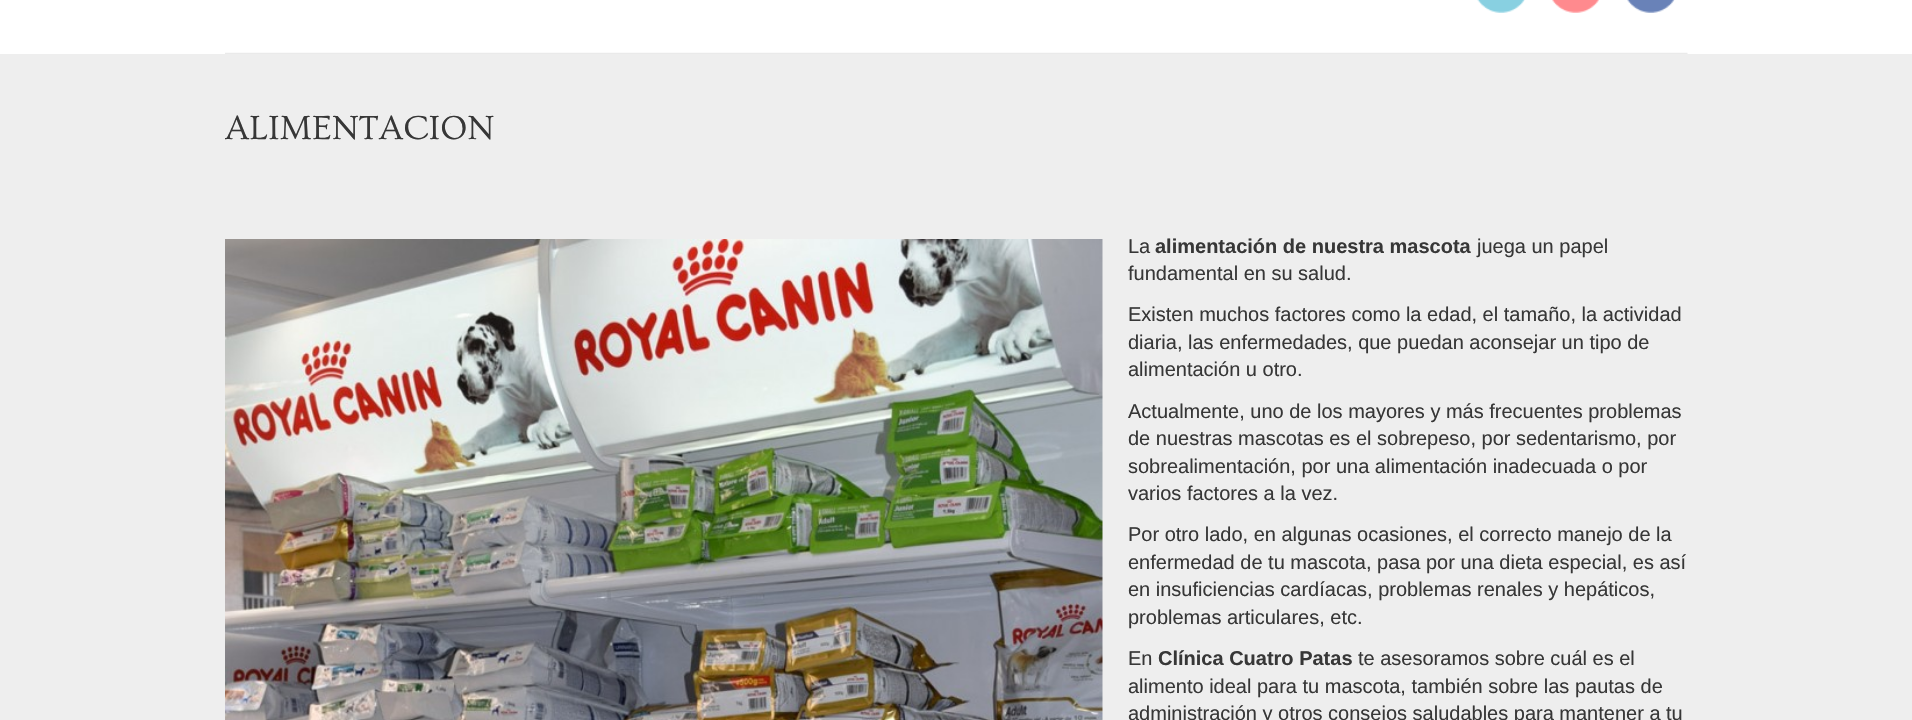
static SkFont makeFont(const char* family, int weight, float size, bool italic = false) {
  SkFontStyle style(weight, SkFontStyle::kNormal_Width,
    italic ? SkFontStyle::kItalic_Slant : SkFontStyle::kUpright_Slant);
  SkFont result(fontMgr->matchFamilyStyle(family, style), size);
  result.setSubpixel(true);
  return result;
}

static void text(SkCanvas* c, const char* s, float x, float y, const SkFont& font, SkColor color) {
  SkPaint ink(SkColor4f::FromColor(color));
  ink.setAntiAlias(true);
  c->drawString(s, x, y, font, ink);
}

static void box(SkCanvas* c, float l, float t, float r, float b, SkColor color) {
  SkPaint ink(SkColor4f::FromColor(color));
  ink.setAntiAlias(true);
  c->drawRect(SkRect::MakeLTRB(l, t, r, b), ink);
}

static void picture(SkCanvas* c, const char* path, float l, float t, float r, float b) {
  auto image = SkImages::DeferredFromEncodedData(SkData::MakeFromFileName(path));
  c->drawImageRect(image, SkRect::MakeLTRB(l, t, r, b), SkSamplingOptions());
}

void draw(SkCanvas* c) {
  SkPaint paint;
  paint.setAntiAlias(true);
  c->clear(0xffeeeeee);
  box(c, 0, 0, 1912, 54, 0xffffffff);
  picture(c, "img_01.png", 225, 52, 1688, 54);
  picture(c, "img_02.png", 1477, 0, 1525, 13);
  picture(c, "img_03.png", 1552, 0, 1599, 13);
  picture(c, "img_04.png", 1627, 0, 1675, 13);
  c->save();
  c->clipRect(SkRect::MakeLTRB(225, 113, 1688, 145));
  SkFont face1 = makeFont("Ovo", 400, 35);
  text(c, "ALIMENTACIÓN", 225, 139, face1, 0xff373737);
  c->restore();
  picture(c, "img_05.png", 225, 239, 1103, 720);
  SkFont face2 = makeFont("Liberation Sans", 400, 20);
  text(c, "La", 1128, 253, face2, 0xff373737);
  SkFont face3 = makeFont("Liberation Sans", 700, 20);
  text(c, "alimentación de nuestra mascota", 1155, 253, face3, 0xff373737);
  text(c, "juega un papel", 1477, 253, face2, 0xff373737);
  text(c, "fundamental en su salud.", 1128, 280, face2, 0xff373737);
  text(c, "Existen muchos factores como la edad, el tamaño, la actividad", 1128, 321, face2, 0xff373737);
  text(c, "diaria, las enfermedades, que puedan aconsejar un tipo de", 1128, 349, face2, 0xff373737);
  text(c, "alimentación u otro.", 1128, 376, face2, 0xff373737);
  text(c, "Actualmente, uno de los mayores y más frecuentes problemas", 1128, 418, face2, 0xff373737);
  text(c, "de nuestras mascotas es el sobrepeso, por sedentarismo, por", 1128, 445, face2, 0xff373737);
  text(c, "sobrealimentación, por una alimentación inadecuada o por", 1128, 473, face2, 0xff373737);
  text(c, "varios factores a la vez.", 1128, 500, face2, 0xff373737);
  text(c, "Por otro lado, en algunas ocasiones, el correcto manejo de la", 1128, 541, face2, 0xff373737);
  text(c, "enfermedad de tu mascota, pasa por una dieta especial, es así", 1128, 569, face2, 0xff373737);
  text(c, "en insuficiencias cardíacas, problemas renales y hepáticos,", 1128, 596, face2, 0xff373737);
  text(c, "problemas articulares, etc.", 1128, 624, face2, 0xff373737);
  text(c, "En", 1128, 665, face2, 0xff373737);
  text(c, "Clínica Cuatro Patas", 1158, 665, face3, 0xff373737);
  text(c, "te asesoramos sobre cuál es el", 1358, 665, face2, 0xff373737);
  text(c, "alimento ideal para tu mascota, también sobre las pautas de", 1128, 693, face2, 0xff373737);
  text(c, "administración y otros consejos saludables para mantener a tu", 1128, 720, face2, 0xff373737);
}
